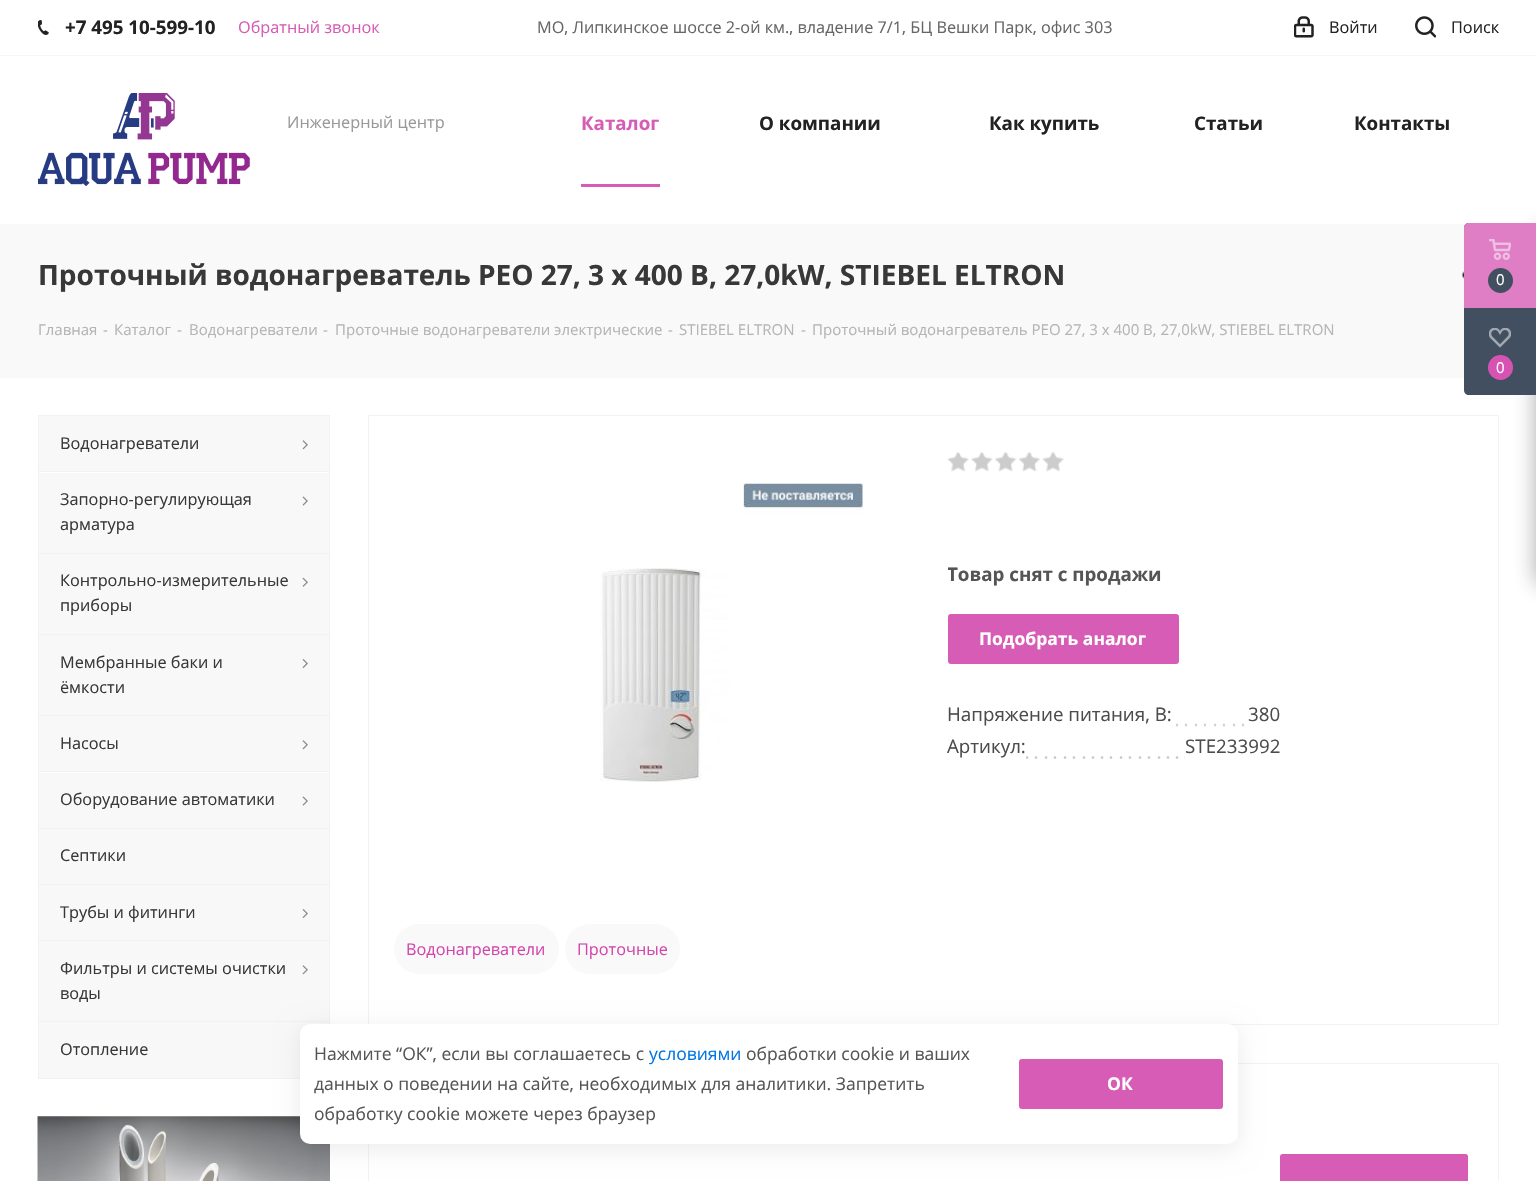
static SkFont makeFont(const char* family, int weight, float size, bool italic = false) {
  SkFontStyle style(weight, SkFontStyle::kNormal_Width,
    italic ? SkFontStyle::kItalic_Slant : SkFontStyle::kUpright_Slant);
  SkFont result(fontMgr->matchFamilyStyle(family, style), size);
  result.setSubpixel(true);
  return result;
}

static void text(SkCanvas* c, const char* s, float x, float y, const SkFont& font, SkColor color) {
  SkPaint ink(SkColor4f::FromColor(color));
  ink.setAntiAlias(true);
  c->drawString(s, x, y, font, ink);
}

static void box(SkCanvas* c, float l, float t, float r, float b, SkColor color) {
  SkPaint ink(SkColor4f::FromColor(color));
  ink.setAntiAlias(true);
  c->drawRect(SkRect::MakeLTRB(l, t, r, b), ink);
}

static void roundBox(SkCanvas* c, float l, float t, float r, float b, float radius, SkColor color) {
  SkPaint ink(SkColor4f::FromColor(color));
  ink.setAntiAlias(true);
  c->drawRoundRect(SkRect::MakeLTRB(l, t, r, b), radius, radius, ink);
}

static void picture(SkCanvas* c, const char* path, float l, float t, float r, float b) {
  auto image = SkImages::DeferredFromEncodedData(SkData::MakeFromFileName(path));
  c->drawImageRect(image, SkRect::MakeLTRB(l, t, r, b), SkSamplingOptions());
}

void draw(SkCanvas* c) {
  SkPaint paint;
  paint.setAntiAlias(true);
  c->clear(0xffffffff);
  box(c, 0, 55, 1536, 56, 0xfff6f6f6);
  picture(c, "img_01.png", 38, 20, 49, 35);
  SkFont face1 = makeFont("Open Sans", 700, 18.75f);
  text(c, "+7 495 10-599-10", 65, 34, face1, 0xff222222);
  SkFont face2 = makeFont("Open Sans", 400, 16.25f);
  text(c, "Обратный звонок", 238, 33, face2, 0xffd75cb6);
  text(c, "МО, Липкинское шоссе 2-ой км., владение 7/1, БЦ Вешки Парк, офис 303", 537, 33, face2, 0xff666666);
  picture(c, "img_02.png", 1294, 16, 1314, 38);
  text(c, "Войти", 1329, 33, face2, 0xff222222);
  picture(c, "img_03.png", 1415, 16, 1436, 38);
  text(c, "Поиск", 1451, 33, face2, 0xff222222);
  picture(c, "img_04.png", 38, 93, 250, 186);
  text(c, "Инженерный центр", 287, 128, face2, 0xff999999);
  text(c, "Каталог", 581, 130, face1, 0xffd75cb6);
  box(c, 581, 184, 660, 187, 0xffd75cb6);
  text(c, "О компании", 759, 130, face1, 0xff222222);
  text(c, "Как купить", 989, 130, face1, 0xff222222);
  text(c, "Статьи", 1194, 130, face1, 0xff222222);
  text(c, "Контакты", 1354, 130, face1, 0xff222222);
  box(c, 0, 224, 1466, 378, 0xfff9f9f9);
  SkFont face3 = makeFont("Open Sans", 700, 28);
  text(c, "Проточный водонагреватель PEO 27, 3 х 400 В, 27,0kW, STIEBEL ELTRON", 38, 285, face3, 0xff383838);
  picture(c, "img_05.png", 1462, 271, 1464, 279);
  SkFont face4 = makeFont("Open Sans", 400, 15);
  text(c, "Главная", 38, 335, face4, 0xffb6b5b5);
  text(c, "-", 103, 335, face4, 0xffb6b5b5);
  text(c, "Каталог", 114, 335, face4, 0xffb6b5b5);
  text(c, "-", 177, 335, face4, 0xffb6b5b5);
  text(c, "Водонагреватели", 189, 335, face4, 0xffb6b5b5);
  text(c, "-", 323, 335, face4, 0xffb6b5b5);
  text(c, "Проточные водонагреватели электрические", 335, 335, face4, 0xffb6b5b5);
  text(c, "-", 668, 335, face4, 0xffb6b5b5);
  text(c, "STIEBEL ELTRON", 679, 335, face4, 0xffb6b5b5);
  text(c, "-", 801, 335, face4, 0xffb6b5b5);
  text(c, "Проточный водонагреватель PEO 27, 3 х 400 В, 27,0kW, STIEBEL ELTRON", 812, 335, face4, 0xffb6b5b5);
  box(c, 39, 416, 329, 471, 0xfff8f8f9);
  box(c, 38, 415, 330, 416, 0xfff2f2f2);
  box(c, 329, 415, 330, 471, 0xfff2f2f2);
  box(c, 38, 415, 39, 471, 0xfff2f2f2);
  text(c, "Водонагреватели", 60, 449, face2, 0xff383838);
  picture(c, "img_06.png", 302, 440, 308, 450);
  box(c, 39, 473, 329, 553, 0xfff8f8f9);
  box(c, 38, 471, 330, 472, 0xfff2f2f2);
  box(c, 329, 471, 330, 553, 0xfff2f2f2);
  box(c, 38, 471, 39, 553, 0xfff2f2f2);
  text(c, "Запорно-регулирующая", 60, 505, face2, 0xff383838);
  picture(c, "img_07.png", 302, 496, 308, 506);
  text(c, "арматура", 60, 530, face2, 0xff383838);
  box(c, 39, 554, 329, 634, 0xfff8f8f9);
  box(c, 38, 553, 330, 554, 0xfff2f2f2);
  box(c, 329, 553, 330, 634, 0xfff2f2f2);
  box(c, 38, 553, 39, 634, 0xfff2f2f2);
  text(c, "Контрольно-измерительные", 60, 586, face2, 0xff383838);
  picture(c, "img_08.png", 302, 577, 308, 587);
  text(c, "приборы", 60, 611, face2, 0xff383838);
  box(c, 39, 635, 329, 715, 0xfff8f8f9);
  box(c, 38, 634, 330, 635, 0xfff2f2f2);
  box(c, 329, 634, 330, 715, 0xfff2f2f2);
  box(c, 38, 634, 39, 715, 0xfff2f2f2);
  text(c, "Мембранные баки и", 60, 668, face2, 0xff383838);
  picture(c, "img_09.png", 302, 659, 308, 668);
  text(c, "ёмкости", 60, 693, face2, 0xff383838);
  box(c, 39, 716, 329, 771, 0xfff8f8f9);
  box(c, 38, 715, 330, 716, 0xfff2f2f2);
  box(c, 329, 715, 330, 771, 0xfff2f2f2);
  box(c, 38, 715, 39, 771, 0xfff2f2f2);
  text(c, "Насосы", 60, 749, face2, 0xff383838);
  picture(c, "img_06.png", 302, 740, 308, 750);
  box(c, 39, 773, 329, 828, 0xfff8f8f9);
  box(c, 38, 771, 330, 772, 0xfff2f2f2);
  box(c, 329, 771, 330, 828, 0xfff2f2f2);
  box(c, 38, 771, 39, 828, 0xfff2f2f2);
  text(c, "Оборудование автоматики", 60, 805, face2, 0xff383838);
  picture(c, "img_07.png", 302, 796, 308, 806);
  box(c, 39, 829, 329, 884, 0xfff8f8f9);
  box(c, 38, 828, 330, 829, 0xfff2f2f2);
  box(c, 329, 828, 330, 884, 0xfff2f2f2);
  box(c, 38, 828, 39, 884, 0xfff2f2f2);
  text(c, "Септики", 60, 861, face2, 0xff383838);
  box(c, 39, 885, 329, 940, 0xfff8f8f9);
  box(c, 38, 884, 330, 885, 0xfff2f2f2);
  box(c, 329, 884, 330, 940, 0xfff2f2f2);
  box(c, 38, 884, 39, 940, 0xfff2f2f2);
  text(c, "Трубы и фитинги", 60, 918, face2, 0xff383838);
  picture(c, "img_09.png", 302, 909, 308, 918);
  box(c, 39, 941, 329, 1021, 0xfff8f8f9);
  box(c, 38, 940, 330, 941, 0xfff2f2f2);
  box(c, 329, 940, 330, 1021, 0xfff2f2f2);
  box(c, 38, 940, 39, 1021, 0xfff2f2f2);
  text(c, "Фильтры и системы очистки", 60, 974, face2, 0xff383838);
  picture(c, "img_06.png", 302, 965, 308, 975);
  text(c, "воды", 60, 999, face2, 0xff383838);
  paint.setColor(0xfff8f8f9);
  c->drawRect(SkRect::MakeLTRB(38.5f, 1021.5f, 329.5f, 1078.5f), paint);
  paint.setStyle(SkPaint::kStroke_Style);
  paint.setStrokeWidth(1);
  paint.setColor(0xfff2f2f2);
  c->drawRect(SkRect::MakeLTRB(38.5f, 1021.5f, 329.5f, 1078.5f), paint);
  text(c, "Отопление", 60, 1055, face2, 0xff383838);
  picture(c, "img_10.png", 37, 1116, 330, 1181);
  c->drawRect(SkRect::MakeLTRB(368.5f, 415.5f, 1498.5f, 1024.5f), paint);
  picture(c, "img_11.png", 947, 452, 969, 472);
  picture(c, "img_12.png", 971, 452, 993, 472);
  picture(c, "img_13.png", 995, 452, 1017, 472);
  picture(c, "img_14.png", 1018, 452, 1040, 472);
  picture(c, "img_15.png", 1042, 452, 1064, 472);
  c->save();
  c->clipRect(SkRect::MakeLTRB(948, 501, 1460, 698));
  text(c, "Товар снят с продажи", 947, 581, face1, 0xff555555);
  c->restore();
  paint.setStyle(SkPaint::kFill_Style);
  paint.setColor(0xffd75cb6);
  c->drawRoundRect(SkRect::MakeLTRB(948.5f, 614.5f, 1178.5f, 663.5f), 2, 2, paint);
  paint.setStyle(SkPaint::kStroke_Style);
  c->drawRoundRect(SkRect::MakeLTRB(948.5f, 614.5f, 1178.5f, 663.5f), 2, 2, paint);
  SkFont face5 = makeFont("Open Sans", 700, 17.5f);
  text(c, "Подобрать аналог", 979, 645, face5, 0xffffffff);
  SkFont face6 = makeFont("Open Sans", 400, 18.75f);
  text(c, "Напряжение питания, В:", 947, 721, face6, 0xff4c4c4c);
  text(c, "380", 1248, 721, face6, 0xff4c4c4c);
  picture(c, "img_16.png", 1171, 723, 1249, 727);
  text(c, "Артикул:", 947, 753, face6, 0xff4c4c4c);
  text(c, "STE233992", 1185, 753, face6, 0xff4c4c4c);
  picture(c, "img_17.png", 1026, 756, 1185, 759);
  picture(c, "img_18.png", 600, 483, 863, 782);
  roundBox(c, 394, 924, 559, 974, 25, 0xfff9f9f9);
  text(c, "Водонагреватели", 406, 955, face2, 0xffd346ad);
  roundBox(c, 565, 924, 680, 974, 25, 0xfff9f9f9);
  text(c, "Проточные", 577, 955, face2, 0xffd346ad);
  paint.setColor(0xfff2f2f2);
  c->drawRect(SkRect::MakeLTRB(368.5f, 1063.5f, 1498.5f, 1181.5f), paint);
  roundBox(c, 1280, 1154, 1468, 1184, 2.5f, 0xffd75cb6);
  paint.setStyle(SkPaint::kFill_Style);
  paint.setColor(0x662c2c2c);
  paint.setMaskFilter(SkMaskFilter::MakeBlur(kNormal_SkBlurStyle, 11));
  c->drawRoundRect(SkRect::MakeLTRB(1536, 230, 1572, 584), 2.5f, 2.5f, paint);
  paint.setMaskFilter(nullptr);
  paint.setColor(0xff424f60);
  c->drawPath(SkPathBuilder().moveTo(1469, 223).lineTo(1536, 223).lineTo(1536, 395).lineTo(1469, 395).cubicTo(1466, 395, 1464, 393, 1464, 390).lineTo(1464, 228).cubicTo(1464, 225, 1466, 223, 1469, 223).close().detach(), paint);
  paint.setColor(0xffdf7dc5);
  c->drawPath(SkPathBuilder().moveTo(1469, 223).lineTo(1536, 223).lineTo(1536, 308).lineTo(1464, 308).lineTo(1464, 228).cubicTo(1464, 225, 1466, 223, 1469, 223).close().detach(), paint);
  picture(c, "img_19.png", 1489, 239, 1511, 260);
  paint.setColor(0xff424f60);
  c->drawCircle(1500.5f, 280.5f, 12.5f, paint);
  text(c, "0", 1496, 285, face4, 0xffffffff);
  picture(c, "img_20.png", 1489, 328, 1511, 348);
  paint.setColor(0xffd653b3);
  c->drawCircle(1500.5f, 367.5f, 12.5f, paint);
  text(c, "0", 1496, 373, face4, 0xffffffff);
  paint.setColor(0x14000000);
  paint.setMaskFilter(SkMaskFilter::MakeBlur(kNormal_SkBlurStyle, 12.5f));
  c->drawRoundRect(SkRect::MakeLTRB(300, 1029, 1238, 1149), 10, 10, paint);
  paint.setMaskFilter(nullptr);
  roundBox(c, 300, 1024, 1238, 1144, 10, 0xffffffff);
  SkFont face7 = makeFont("Open Sans", 400, 17.5f);
  text(c, "Нажмите “ОК”, если вы соглашаетесь с", 314, 1060, face7, 0xff555555);
  text(c, "условиями", 649, 1060, face7, 0xff0075e2);
  text(c, "обработки cookie и ваших", 746, 1060, face7, 0xff555555);
  text(c, "данных о поведении на сайте, необходимых для аналитики. Запретить", 314, 1090, face7, 0xff555555);
  text(c, "обработку cookie можете через браузер", 314, 1120, face7, 0xff555555);
  paint.setColor(0xffd75cb6);
  c->drawRoundRect(SkRect::MakeLTRB(1019.5f, 1059.5f, 1222.5f, 1108.5f), 2, 2, paint);
  paint.setStyle(SkPaint::kStroke_Style);
  c->drawRoundRect(SkRect::MakeLTRB(1019.5f, 1059.5f, 1222.5f, 1108.5f), 2, 2, paint);
  text(c, "ОК", 1107, 1090, face5, 0xffffffff);
}
